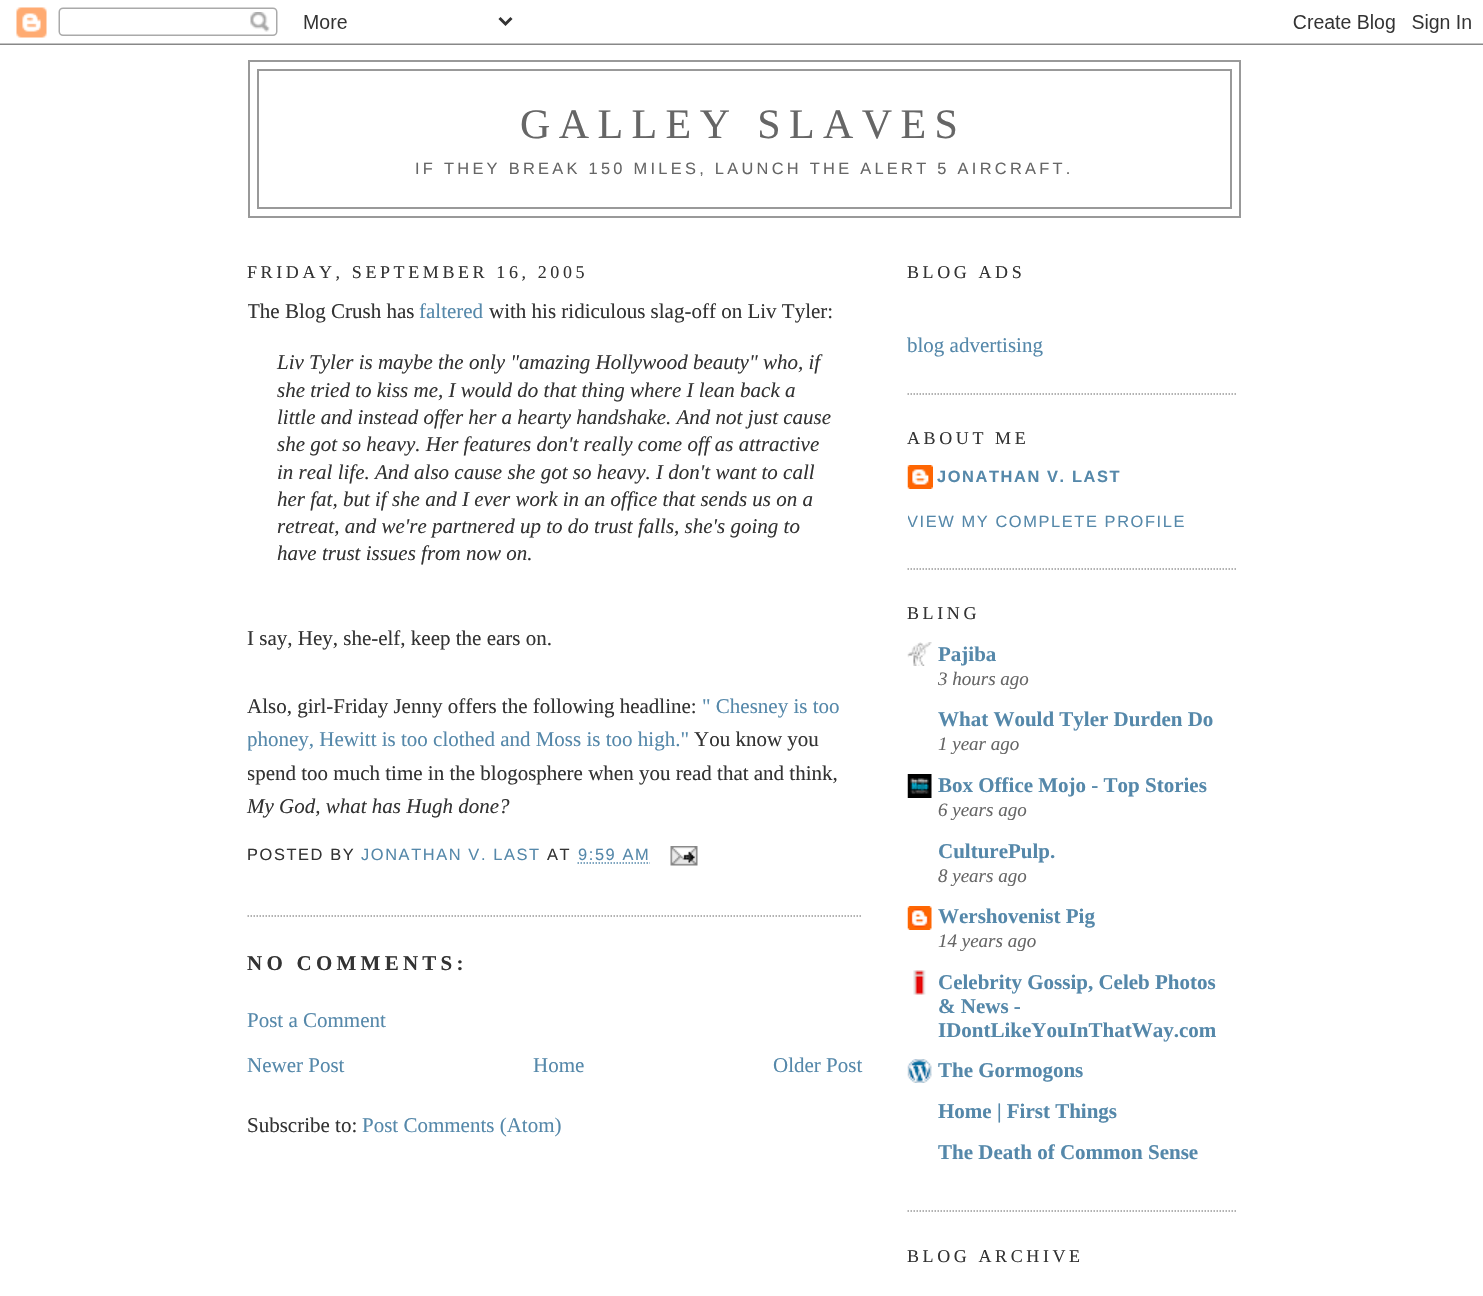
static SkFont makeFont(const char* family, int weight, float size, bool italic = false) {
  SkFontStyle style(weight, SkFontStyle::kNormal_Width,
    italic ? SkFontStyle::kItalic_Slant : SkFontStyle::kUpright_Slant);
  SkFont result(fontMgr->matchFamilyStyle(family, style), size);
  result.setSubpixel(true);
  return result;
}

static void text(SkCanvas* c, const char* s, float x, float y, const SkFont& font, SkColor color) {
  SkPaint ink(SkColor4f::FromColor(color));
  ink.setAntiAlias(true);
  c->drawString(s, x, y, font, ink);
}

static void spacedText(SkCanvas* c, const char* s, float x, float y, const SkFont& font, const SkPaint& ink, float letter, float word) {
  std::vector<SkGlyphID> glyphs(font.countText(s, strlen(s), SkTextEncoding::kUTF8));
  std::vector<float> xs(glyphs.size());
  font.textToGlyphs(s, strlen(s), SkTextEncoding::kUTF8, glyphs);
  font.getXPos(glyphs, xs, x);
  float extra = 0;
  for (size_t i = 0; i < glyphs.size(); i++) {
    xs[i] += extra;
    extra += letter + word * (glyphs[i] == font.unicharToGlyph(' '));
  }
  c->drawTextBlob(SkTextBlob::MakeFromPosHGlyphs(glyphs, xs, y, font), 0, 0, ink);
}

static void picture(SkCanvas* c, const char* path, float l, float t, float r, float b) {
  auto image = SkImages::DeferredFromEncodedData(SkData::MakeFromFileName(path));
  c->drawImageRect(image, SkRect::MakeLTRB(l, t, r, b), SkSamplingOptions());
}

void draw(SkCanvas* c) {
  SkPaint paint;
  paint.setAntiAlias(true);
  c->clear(0xffffffff);
  picture(c, "img_01.png", 0, 7, 1483, 45);
  paint.setStyle(SkPaint::kStroke_Style);
  paint.setStrokeWidth(2);
  paint.setColor(0xff999999);
  c->drawRect(SkRect::MakeLTRB(249, 61, 1240, 217), paint);
  c->drawRect(SkRect::MakeLTRB(258, 70, 1231, 208), paint);
  SkFont face1 = makeFont("Liberation Serif", 400, 42);
  paint.setStyle(SkPaint::kFill_Style);
  paint.setColor(0xff666666);
  spacedText(c, "GALLEY SLAVES", 520, 138, face1, paint, 8.4f, 0);
  SkFont face2 = makeFont("Liberation Sans", 400, 16.4f);
  spacedText(c, "IF THEY BREAK 150 MILES, LAUNCH THE ALERT 5 AIRCRAFT.", 415, 174, face2, paint, 3.28f, 0);
  SkFont face3 = makeFont("Liberation Serif", 400, 18);
  paint.setColor(0xff333333);
  spacedText(c, "FRIDAY, SEPTEMBER 16, 2005", 247, 278, face3, paint, 3.6f, 0);
  paint.setStyle(SkPaint::kStroke_Style);
  paint.setStrokeWidth(1.5f);
  paint.setColor(0xff999999);
  paint.setPathEffect(SkDashPathEffect::Make({{1.5f, 1.5f}}, 0));
  c->drawPath(SkPathBuilder().moveTo(247.5f, 916).lineTo(862.5f, 916).detach(), paint);
  paint.setPathEffect(nullptr);
  c->save();
  c->clipRect(SkRect::MakeLTRB(248, 233, 863, 1215));
  SkFont face4 = makeFont("Liberation Serif", 400, 21);
  text(c, "The Blog Crush has", 247, 318, face4, 0xff333333);
  c->restore();
  text(c, "faltered", 419, 318, face4, 0xff5588aa);
  text(c, "with his ridiculous slag-off on Liv Tyler:", 489, 318, face4, 0xff333333);
  SkFont face5 = makeFont("Liberation Serif", 400, 21, true);
  text(c, "Liv Tyler is maybe the only \"amazing Hollywood beauty\" who, if", 277, 369, face5, 0xff333333);
  text(c, "she tried to kiss me, I would do that thing where I lean back a", 277, 397, face5, 0xff333333);
  text(c, "little and instead offer her a hearty handshake. And not just cause", 277, 424, face5, 0xff333333);
  text(c, "she got so heavy. Her features don't really come off as attractive", 277, 451, face5, 0xff333333);
  text(c, "in real life. And also cause she got so heavy. I don't want to call", 277, 479, face5, 0xff333333);
  text(c, "her fat, but if she and I ever work in an office that sends us on a", 277, 506, face5, 0xff333333);
  text(c, "retreat, and we're partnered up to do trust falls, she's going to", 277, 533, face5, 0xff333333);
  text(c, "have trust issues from now on.", 277, 560, face5, 0xff333333);
  text(c, "I say, Hey, she-elf, keep the ears on.", 247, 645, face4, 0xff333333);
  text(c, "Also, girl-Friday Jenny offers the following headline:", 247, 713, face4, 0xff333333);
  text(c, "\" Chesney is too", 702, 713, face4, 0xff5588aa);
  c->save();
  c->clipRect(SkRect::MakeLTRB(248, 233, 863, 1215));
  text(c, "phoney, Hewitt is too clothed and Moss is too high.\"", 247, 746, face4, 0xff5588aa);
  c->restore();
  text(c, "You know you", 694, 746, face4, 0xff333333);
  c->save();
  c->clipRect(SkRect::MakeLTRB(248, 233, 863, 1215));
  text(c, "spend too much time in the blogosphere when you read that and think,", 247, 780, face4, 0xff333333);
  c->restore();
  text(c, "My God, what has Hugh done?", 247, 813, face5, 0xff333333);
  paint.setStyle(SkPaint::kFill_Style);
  paint.setColor(0xff333333);
  spacedText(c, "POSTED BY", 247, 860, face2, paint, 1.6f, 0);
  paint.setColor(0xff5588aa);
  spacedText(c, "JONATHAN V. LAST", 361, 860, face2, paint, 1.6f, 0);
  paint.setColor(0xff333333);
  spacedText(c, "AT", 547, 860, face2, paint, 1.6f, 0);
  paint.setColor(0xff5588aa);
  spacedText(c, "9:59 AM", 578, 860, face2, paint, 1.6f, 0);
  paint.setStyle(SkPaint::kStroke_Style);
  paint.setPathEffect(SkDashPathEffect::Make({{1.5f, 1.5f}}, 0));
  c->drawPath(SkPathBuilder().moveTo(577.5f, 863).lineTo(650, 863).detach(), paint);
  paint.setPathEffect(nullptr);
  picture(c, "img_02.png", 670, 846, 698, 866);
  SkFont face6 = makeFont("Liberation Serif", 700, 21);
  paint.setStyle(SkPaint::kFill_Style);
  paint.setColor(0xff333333);
  spacedText(c, "NO COMMENTS:", 247, 970, face6, paint, 4.25f, 0);
  text(c, "Post a Comment", 247, 1027, face4, 0xff5588aa);
  text(c, "Newer Post", 247, 1072, face4, 0xff5588aa);
  text(c, "Home", 533, 1072, face4, 0xff5588aa);
  text(c, "Older Post", 773, 1072, face4, 0xff5588aa);
  text(c, "Subscribe to:", 247, 1132, face4, 0xff333333);
  text(c, "Post Comments (Atom)", 362, 1132, face4, 0xff5588aa);
  paint.setStyle(SkPaint::kStroke_Style);
  paint.setColor(0xff999999);
  paint.setPathEffect(SkDashPathEffect::Make({{1.5f, 1.5f}}, 0));
  c->drawPath(SkPathBuilder().moveTo(907.5f, 394).lineTo(1237.5f, 394).detach(), paint);
  paint.setPathEffect(nullptr);
  paint.setStyle(SkPaint::kFill_Style);
  paint.setColor(0xff333333);
  spacedText(c, "BLOG ADS", 907, 278, face3, paint, 3.6f, 0);
  text(c, "blog advertising", 907, 352, face4, 0xff5588aa);
  paint.setStyle(SkPaint::kStroke_Style);
  paint.setColor(0xff999999);
  paint.setPathEffect(SkDashPathEffect::Make({{1.5f, 1.5f}}, 0));
  c->drawPath(SkPathBuilder().moveTo(907.5f, 569).lineTo(1237.5f, 569).detach(), paint);
  paint.setPathEffect(nullptr);
  paint.setStyle(SkPaint::kFill_Style);
  paint.setColor(0xff333333);
  spacedText(c, "ABOUT ME", 907, 444, face3, paint, 3.6f, 0);
  picture(c, "img_03.png", 907, 465, 933, 489);
  SkFont face7 = makeFont("Liberation Sans", 700, 16.4f);
  paint.setColor(0xff5588aa);
  spacedText(c, "JONATHAN V. LAST", 937, 482, face7, paint, 1.6f, 0);
  c->save();
  c->clipRect(SkRect::MakeLTRB(908, 233, 1238, 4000));
  spacedText(c, "VIEW MY COMPLETE PROFILE", 907, 527, face2, paint, 1.6f, 0);
  c->restore();
  paint.setStyle(SkPaint::kStroke_Style);
  paint.setColor(0xff999999);
  paint.setPathEffect(SkDashPathEffect::Make({{1.5f, 1.5f}}, 0));
  c->drawPath(SkPathBuilder().moveTo(907.5f, 1211).lineTo(1237.5f, 1211).detach(), paint);
  paint.setPathEffect(nullptr);
  paint.setStyle(SkPaint::kFill_Style);
  paint.setColor(0xff333333);
  spacedText(c, "BLING", 907, 619, face3, paint, 3.6f, 0);
  picture(c, "img_04.png", 907, 642, 932, 666);
  text(c, "Pajiba", 938, 661, face6, 0xff5588aa);
  SkFont face8 = makeFont("Liberation Serif", 400, 19, true);
  text(c, "3 hours ago", 938, 685, face8, 0xff666666);
  text(c, "What Would Tyler Durden Do", 938, 726, face6, 0xff5588aa);
  text(c, "1 year ago", 938, 750, face8, 0xff666666);
  picture(c, "img_05.png", 907, 774, 932, 798);
  text(c, "Box Office Mojo - Top Stories", 938, 792, face6, 0xff5588aa);
  text(c, "6 years ago", 938, 816, face8, 0xff666666);
  text(c, "CulturePulp.", 938, 858, face6, 0xff5588aa);
  text(c, "8 years ago", 938, 882, face8, 0xff666666);
  picture(c, "img_06.png", 907, 906, 932, 930);
  text(c, "Wershovenist Pig", 938, 923, face6, 0xff5588aa);
  text(c, "14 years ago", 938, 947, face8, 0xff666666);
  picture(c, "img_07.png", 913, 970, 926, 995);
  text(c, "Celebrity Gossip, Celeb Photos", 938, 989, face6, 0xff5588aa);
  text(c, "& News -", 938, 1013, face6, 0xff5588aa);
  text(c, "IDontLikeYouInThatWay.com", 938, 1037, face6, 0xff5588aa);
  picture(c, "img_08.png", 907, 1059, 932, 1083);
  text(c, "The Gormogons", 938, 1077, face6, 0xff5588aa);
  text(c, "Home | First Things", 938, 1118, face6, 0xff5588aa);
  text(c, "The Death of Common Sense", 938, 1159, face6, 0xff5588aa);
  spacedText(c, "BLOG ARCHIVE", 907, 1262, face3, paint, 3.6f, 0);
}
